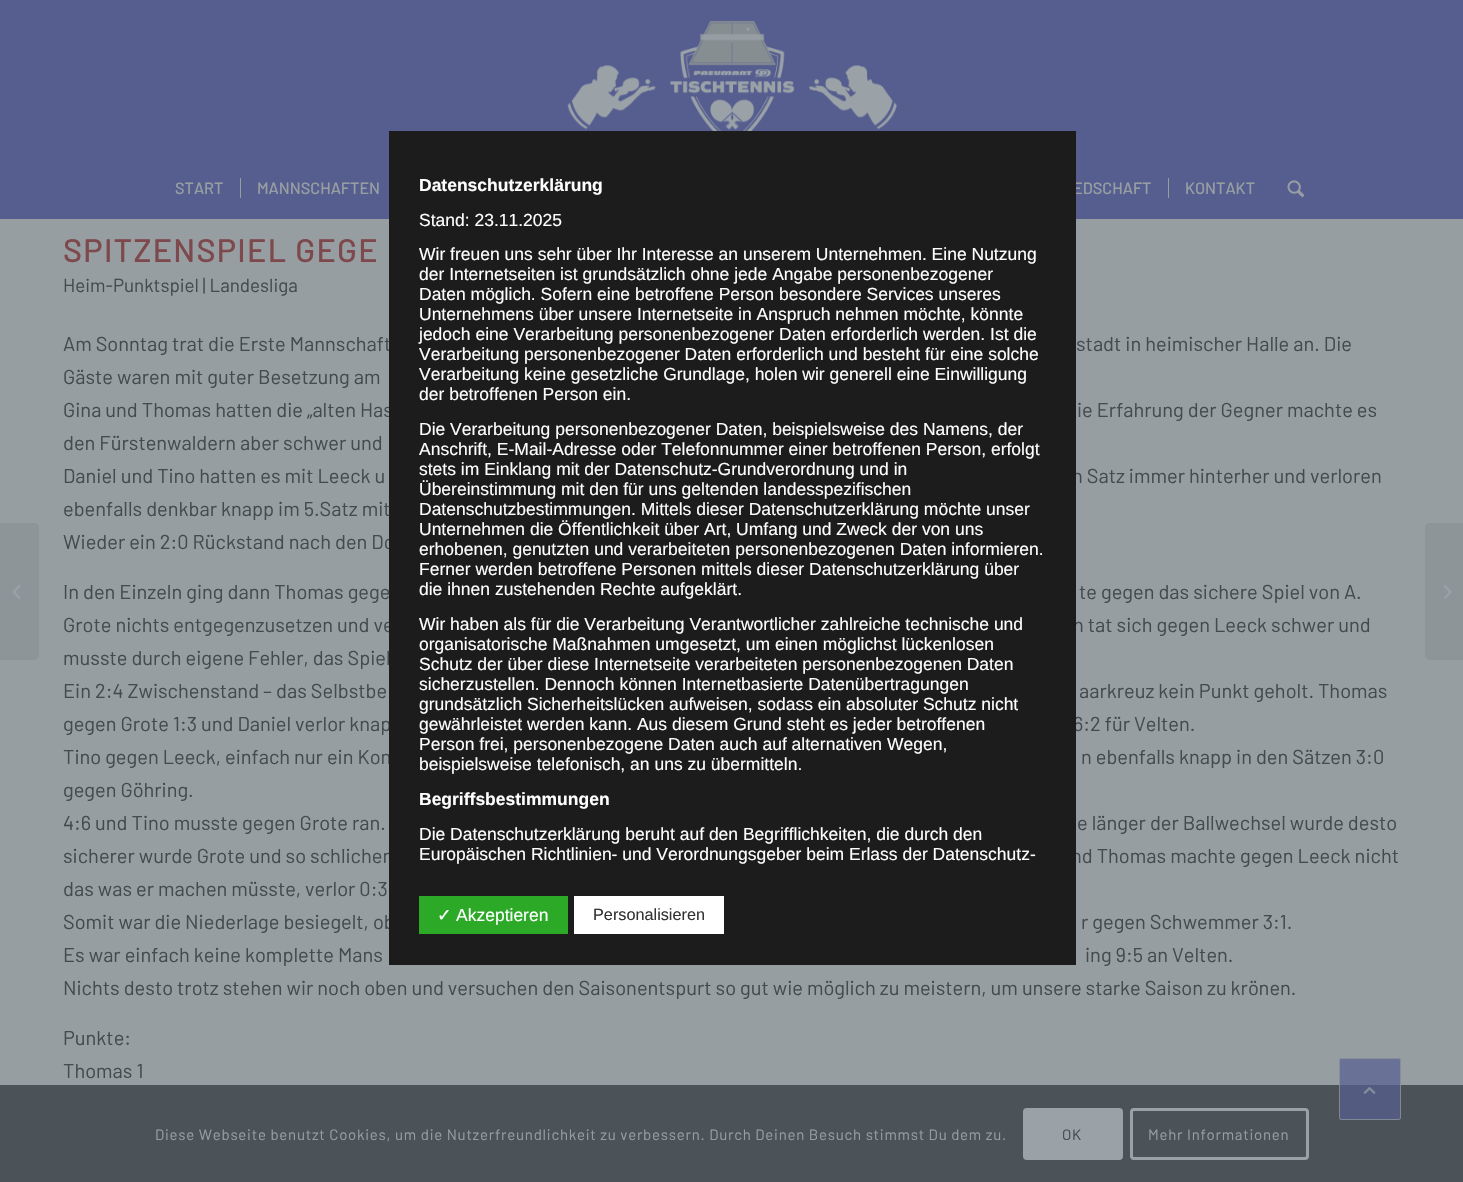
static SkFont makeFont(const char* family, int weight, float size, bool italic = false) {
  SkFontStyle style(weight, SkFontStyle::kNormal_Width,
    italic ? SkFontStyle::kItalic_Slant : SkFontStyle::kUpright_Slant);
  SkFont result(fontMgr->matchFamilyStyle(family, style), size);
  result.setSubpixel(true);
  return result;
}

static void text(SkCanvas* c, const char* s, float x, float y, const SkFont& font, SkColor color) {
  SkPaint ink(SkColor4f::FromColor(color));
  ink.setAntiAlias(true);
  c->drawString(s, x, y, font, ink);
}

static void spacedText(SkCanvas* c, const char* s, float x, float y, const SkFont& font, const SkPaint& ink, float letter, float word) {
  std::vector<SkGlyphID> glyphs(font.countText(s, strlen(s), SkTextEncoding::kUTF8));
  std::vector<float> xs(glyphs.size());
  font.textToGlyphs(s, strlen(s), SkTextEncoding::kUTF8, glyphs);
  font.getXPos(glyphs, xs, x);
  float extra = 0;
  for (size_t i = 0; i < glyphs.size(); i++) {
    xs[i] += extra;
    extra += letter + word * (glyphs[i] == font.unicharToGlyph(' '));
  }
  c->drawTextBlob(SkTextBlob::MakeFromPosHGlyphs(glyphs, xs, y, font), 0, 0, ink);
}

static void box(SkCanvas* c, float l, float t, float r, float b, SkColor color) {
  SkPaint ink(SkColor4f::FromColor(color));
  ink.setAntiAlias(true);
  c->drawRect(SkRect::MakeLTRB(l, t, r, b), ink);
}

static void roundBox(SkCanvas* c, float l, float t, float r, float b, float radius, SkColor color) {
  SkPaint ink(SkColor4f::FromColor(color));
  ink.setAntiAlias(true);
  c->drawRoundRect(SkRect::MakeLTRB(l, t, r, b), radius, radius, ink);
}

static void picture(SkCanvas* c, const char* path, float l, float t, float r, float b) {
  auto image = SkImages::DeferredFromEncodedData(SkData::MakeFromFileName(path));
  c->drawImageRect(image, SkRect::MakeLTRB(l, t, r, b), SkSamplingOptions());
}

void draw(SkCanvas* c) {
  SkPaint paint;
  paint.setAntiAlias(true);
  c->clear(0xff969ea2);
  box(c, 0, 0, 1463, 219, 0xff565e90);
  SkFont face1 = makeFont("Barlow", 500, 16.25f);
  text(c, "EDSCHAFT", 1073, 194, face1, 0xff969ea2);
  SkFont face2 = makeFont("Barlow", 400, 20);
  text(c, "Am Sonntag trat die Erste Mannschaft", 63, 351, face2, 0xff434b4f);
  text(c, "Gina und Thomas hatten die „alten Has", 63, 417, face2, 0xff434b4f);
  text(c, "n Satz immer hinterher und verloren", 1072, 483, face2, 0xff434b4f);
  text(c, "Wieder ein 2:0 Rückstand nach den Do", 63, 549, face2, 0xff434b4f);
  text(c, "Grote nichts entgegenzusetzen und ve", 63, 632, face2, 0xff434b4f);
  text(c, "n tat sich gegen Leeck schwer und", 1073, 632, face2, 0xff434b4f);
  text(c, "gegen Grote 1:3 und Daniel verlor knap", 63, 731, face2, 0xff434b4f);
  text(c, "6:2 für Velten.", 1073, 731, face2, 0xff434b4f);
  text(c, "Tino gegen Leeck, einfach nur ein Kon", 63, 764, face2, 0xff434b4f);
  text(c, "sicherer wurde Grote und so schlichen", 63, 863, face2, 0xff434b4f);
  text(c, "nd Thomas machte gegen Leeck nicht", 1071, 863, face2, 0xff434b4f);
  text(c, "Somit war die Niederlage besiegelt, ob", 63, 929, face2, 0xff434b4f);
  box(c, 389, 131, 1076, 965, 0xff1d1c1c);
  SkFont face3 = makeFont("Liberation Sans", 700, 17.5f);
  text(c, "Datenschutzerklärung", 419, 191, face3, 0xffffffff);
  SkFont face4 = makeFont("Liberation Sans", 400, 17.5f);
  text(c, "Stand: 23.11.2025", 419, 226, face4, 0xffffffff);
  text(c, "Wir freuen uns sehr über Ihr Interesse an unserem Unternehmen. Eine Nutzung", 419, 260, face4, 0xffffffff);
  text(c, "der Internetseiten ist grundsätzlich ohne jede Angabe personenbezogener", 419, 280, face4, 0xffffffff);
  text(c, "Daten möglich. Sofern eine betroffene Person besondere Services unseres", 419, 300, face4, 0xffffffff);
  text(c, "Unternehmens über unsere Internetseite in Anspruch nehmen möchte, könnte", 419, 320, face4, 0xffffffff);
  text(c, "jedoch eine Verarbeitung personenbezogener Daten erforderlich werden. Ist die", 419, 340, face4, 0xffffffff);
  text(c, "Verarbeitung personenbezogener Daten erforderlich und besteht für eine solche", 419, 360, face4, 0xffffffff);
  text(c, "Verarbeitung keine gesetzliche Grundlage, holen wir generell eine Einwilligung", 419, 380, face4, 0xffffffff);
  text(c, "der betroffenen Person ein.", 419, 400, face4, 0xffffffff);
  text(c, "Die Verarbeitung personenbezogener Daten, beispielsweise des Namens, der", 419, 435, face4, 0xffffffff);
  text(c, "Anschrift, E-Mail-Adresse oder Telefonnummer einer betroffenen Person, erfolgt", 419, 455, face4, 0xffffffff);
  text(c, "stets im Einklang mit der Datenschutz-Grundverordnung und in", 419, 475, face4, 0xffffffff);
  text(c, "Übereinstimmung mit den für uns geltenden landesspezifischen", 419, 495, face4, 0xffffffff);
  text(c, "Datenschutzbestimmungen. Mittels dieser Datenschutzerklärung möchte unser", 419, 515, face4, 0xffffffff);
  text(c, "Unternehmen die Öffentlichkeit über Art, Umfang und Zweck der von uns", 419, 535, face4, 0xffffffff);
  text(c, "erhobenen, genutzten und verarbeiteten personenbezogenen Daten informieren.", 419, 555, face4, 0xffffffff);
  text(c, "Ferner werden betroffene Personen mittels dieser Datenschutzerklärung über", 419, 575, face4, 0xffffffff);
  text(c, "die ihnen zustehenden Rechte aufgeklärt.", 419, 595, face4, 0xffffffff);
  text(c, "Wir haben als für die Verarbeitung Verantwortlicher zahlreiche technische und", 419, 630, face4, 0xffffffff);
  text(c, "organisatorische Maßnahmen umgesetzt, um einen möglichst lückenlosen", 419, 650, face4, 0xffffffff);
  text(c, "Schutz der über diese Internetseite verarbeiteten personenbezogenen Daten", 419, 670, face4, 0xffffffff);
  text(c, "sicherzustellen. Dennoch können Internetbasierte Datenübertragungen", 419, 690, face4, 0xffffffff);
  text(c, "grundsätzlich Sicherheitslücken aufweisen, sodass ein absoluter Schutz nicht", 419, 710, face4, 0xffffffff);
  text(c, "gewährleistet werden kann. Aus diesem Grund steht es jeder betroffenen", 419, 730, face4, 0xffffffff);
  text(c, "Person frei, personenbezogene Daten auch auf alternativen Wegen,", 419, 750, face4, 0xffffffff);
  text(c, "beispielsweise telefonisch, an uns zu übermitteln.", 419, 770, face4, 0xffffffff);
  text(c, "Begriffsbestimmungen", 419, 805, face3, 0xffffffff);
  text(c, "Die Datenschutzerklärung beruht auf den Begrifflichkeiten, die durch den", 419, 840, face4, 0xffffffff);
  text(c, "Europäischen Richtlinien- und Verordnungsgeber beim Erlass der Datenschutz-", 419, 860, face4, 0xffffffff);
  box(c, 419, 896, 568, 934, 0xff2caa27);
  SkFont face5 = makeFont("DejaVu Sans", 400, 17.5f);
  text(c, "✓", 437, 921, face5, 0xffffffff);
  text(c, "Akzeptieren", 456, 921, face4, 0xffffffff);
  box(c, 574, 896, 724, 934, 0xffffffff);
  SkFont face6 = makeFont("Liberation Sans", 400, 16.25f);
  text(c, "Personalisieren", 593, 920, face6, 0xff333333);
  picture(c, "img_01.png", 567, 21, 897, 131);
  text(c, "START", 175, 194, face1, 0xff969ea2);
  text(c, "MANNSCHAFTEN", 257, 194, face1, 0xff969ea2);
  box(c, 240, 178, 241, 198, 0xff969ea2);
  text(c, "KONTAKT", 1185, 194, face1, 0xff969ea2);
  box(c, 1168, 178, 1169, 198, 0xff969ea2);
  picture(c, "img_02.png", 1287, 180, 1305, 198);
  paint.setColor(0xff8d9599);
  c->drawPath(SkPathBuilder().moveTo(0, 523).lineTo(34, 523).cubicTo(37, 523, 39, 525, 39, 528).lineTo(39, 655).cubicTo(39, 658, 37, 660, 34, 660).lineTo(0, 660).close().detach(), paint);
  picture(c, "img_03.png", 12, 585, 21, 599);
  box(c, 0, 1085, 1463, 1182, 0xff4c5358);
  SkFont face7 = makeFont("Barlow", 500, 32.5f);
  paint.setColor(0xff7e494d);
  spacedText(c, "SPITZENSPIEL GEGE", 63, 262, face7, paint, 1.25f, 0);
  SkFont face8 = makeFont("Barlow", 400, 18.75f);
  text(c, "Heim-Punktspiel | Landesliga", 63, 292, face8, 0xff434b4f);
  text(c, "stadt in heimischer Halle an. Die", 1076, 351, face2, 0xff434b4f);
  text(c, "Gäste waren mit guter Besetzung am", 63, 384, face2, 0xff434b4f);
  text(c, "ie Erfahrung der Gegner machte es", 1077, 417, face2, 0xff434b4f);
  text(c, "den Fürstenwaldern aber schwer und", 63, 450, face2, 0xff434b4f);
  text(c, "Daniel und Tino hatten es mit Leeck u", 63, 483, face2, 0xff434b4f);
  text(c, "ebenfalls denkbar knapp im 5.Satz mit", 63, 516, face2, 0xff434b4f);
  text(c, "In den Einzeln ging dann Thomas gege", 63, 599, face2, 0xff434b4f);
  text(c, "te gegen das sichere Spiel von A.", 1079, 599, face2, 0xff434b4f);
  text(c, "musste durch eigene Fehler, das Spiel", 63, 665, face2, 0xff434b4f);
  text(c, "Ein 2:4 Zwischenstand – das Selbstbe", 63, 698, face2, 0xff434b4f);
  text(c, "aarkreuz kein Punkt geholt. Thomas", 1079, 698, face2, 0xff434b4f);
  text(c, "n ebenfalls knapp in den Sätzen 3:0", 1081, 764, face2, 0xff434b4f);
  text(c, "gegen Göhring.", 63, 797, face2, 0xff434b4f);
  text(c, "4:6 und Tino musste gegen Grote ran.", 63, 830, face2, 0xff434b4f);
  text(c, "e länger der Ballwechsel wurde desto", 1077, 830, face2, 0xff434b4f);
  text(c, "das was er machen müsste, verlor 0:3", 63, 896, face2, 0xff434b4f);
  text(c, "r gegen Schwemmer 3:1.", 1081, 929, face2, 0xff434b4f);
  text(c, "Es war einfach keine komplette Mans", 63, 962, face2, 0xff434b4f);
  text(c, "ing 9:5 an Velten.", 1085, 962, face2, 0xff434b4f);
  text(c, "Nichts desto trotz stehen wir noch oben und versuchen den Saisonentspurt so gut wie möglich zu meistern, um unsere starke Saison zu krönen.", 63, 995, face2, 0xff434b4f);
  text(c, "Punkte:", 63, 1045, face2, 0xff434b4f);
  text(c, "Thomas 1", 63, 1078, face2, 0xff434b4f);
  paint.setColor(0xff8d9599);
  c->drawPath(SkPathBuilder().moveTo(1430, 523).lineTo(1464, 523).lineTo(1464, 660).lineTo(1430, 660).cubicTo(1427, 660, 1425, 658, 1425, 655).lineTo(1425, 528).cubicTo(1425, 525, 1427, 523, 1430, 523).close().detach(), paint);
  picture(c, "img_04.png", 1443, 585, 1452, 599);
  roundBox(c, 1339, 1058, 1401, 1120, 2.5f, 0xb3565e90);
  paint.setStyle(SkPaint::kStroke_Style);
  paint.setStrokeWidth(1);
  paint.setColor(0xb3939b9f);
  c->drawRoundRect(SkRect::MakeLTRB(1339.5f, 1058.5f, 1400.5f, 1119.5f), 2, 2, paint);
  picture(c, "img_05.png", 1363, 1087, 1376, 1094);
  SkFont face9 = makeFont("Barlow", 400, 15);
  paint.setStyle(SkPaint::kFill_Style);
  paint.setColor(0xff969ea2);
  spacedText(c, "Diese Webseite benutzt Cookies, um die Nutzerfreundlichkeit zu verbessern. Durch Deinen Besuch stimmst Du dem zu.", 155, 1140, face9, paint, 0.75f, 0);
  roundBox(c, 1023, 1108, 1123, 1160, 4, 0xff9ba2a7);
  paint.setColor(0xff434b4f);
  spacedText(c, "OK", 1062, 1140, face9, paint, 0.75f, 0);
  paint.setStyle(SkPaint::kStroke_Style);
  paint.setStrokeWidth(3);
  paint.setColor(0xff9ba2a7);
  c->drawRoundRect(SkRect::MakeLTRB(1131.5f, 1109.5f, 1307.5f, 1158.5f), 2.5f, 2.5f, paint);
  paint.setStyle(SkPaint::kFill_Style);
  paint.setColor(0xff969ea2);
  spacedText(c, "Mehr Informationen", 1148, 1140, face9, paint, 0.75f, 0);
}
